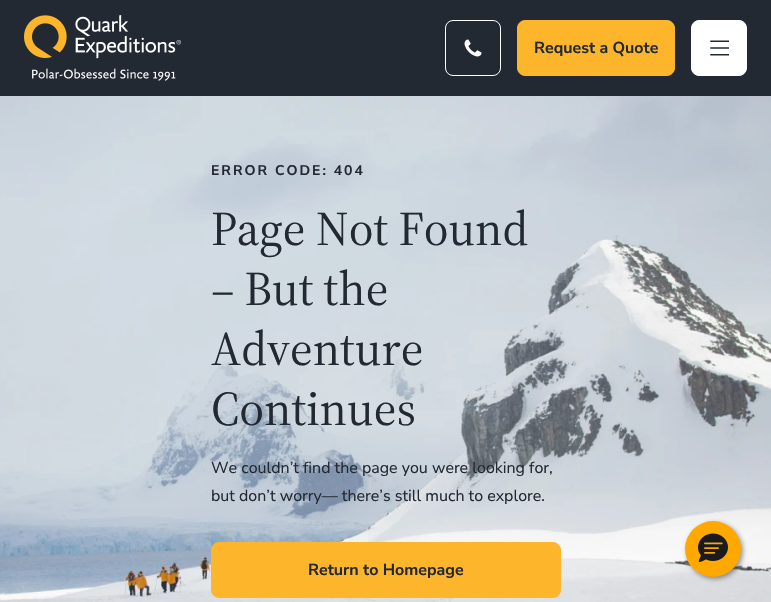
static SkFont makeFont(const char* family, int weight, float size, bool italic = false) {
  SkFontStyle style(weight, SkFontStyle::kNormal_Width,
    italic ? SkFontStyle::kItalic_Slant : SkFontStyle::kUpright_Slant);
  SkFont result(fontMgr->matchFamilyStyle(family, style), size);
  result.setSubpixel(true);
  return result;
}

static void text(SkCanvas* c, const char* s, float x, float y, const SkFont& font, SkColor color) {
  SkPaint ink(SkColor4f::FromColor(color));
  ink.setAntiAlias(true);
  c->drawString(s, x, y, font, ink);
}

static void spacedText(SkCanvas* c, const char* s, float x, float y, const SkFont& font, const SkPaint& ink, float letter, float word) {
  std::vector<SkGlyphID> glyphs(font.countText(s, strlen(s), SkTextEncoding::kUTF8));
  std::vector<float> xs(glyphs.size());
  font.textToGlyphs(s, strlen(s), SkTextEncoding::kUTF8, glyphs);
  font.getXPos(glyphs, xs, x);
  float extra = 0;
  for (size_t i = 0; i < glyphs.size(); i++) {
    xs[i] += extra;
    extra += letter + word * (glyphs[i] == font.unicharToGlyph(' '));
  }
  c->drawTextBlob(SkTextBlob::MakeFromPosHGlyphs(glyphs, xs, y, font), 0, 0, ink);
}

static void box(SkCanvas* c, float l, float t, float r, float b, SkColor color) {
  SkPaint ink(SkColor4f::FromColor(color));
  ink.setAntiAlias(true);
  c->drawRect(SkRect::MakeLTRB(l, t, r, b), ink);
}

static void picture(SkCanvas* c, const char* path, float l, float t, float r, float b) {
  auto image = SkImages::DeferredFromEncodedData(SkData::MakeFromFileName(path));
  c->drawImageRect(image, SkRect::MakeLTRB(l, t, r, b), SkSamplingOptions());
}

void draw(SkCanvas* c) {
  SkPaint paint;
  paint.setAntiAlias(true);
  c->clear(0xffffffff);
  box(c, 0, 0, 771, 96, 0xff232933);
  picture(c, "img_01.png", 24, 15, 181, 81);
  paint.setStyle(SkPaint::kStroke_Style);
  paint.setStrokeWidth(1);
  paint.setColor(0xffffffff);
  c->drawRoundRect(SkRect::MakeLTRB(445.5f, 20.5f, 500.5f, 75.5f), 7.5f, 7.5f, paint);
  picture(c, "img_02.png", 464, 39, 482, 57);
  paint.setStyle(SkPaint::kFill_Style);
  paint.setColor(0xfffdb52b);
  c->drawRoundRect(SkRect::MakeLTRB(517.5f, 20.5f, 674.5f, 75.5f), 7.5f, 7.5f, paint);
  paint.setStyle(SkPaint::kStroke_Style);
  c->drawRoundRect(SkRect::MakeLTRB(517.5f, 20.5f, 674.5f, 75.5f), 7.5f, 7.5f, paint);
  SkFont face1 = makeFont("Nunito Sans", 700, 16);
  text(c, "Request a Quote", 534, 53, face1, 0xff232933);
  paint.setStyle(SkPaint::kFill_Style);
  paint.setColor(0xffffffff);
  c->drawRoundRect(SkRect::MakeLTRB(691.5f, 20.5f, 746.5f, 75.5f), 7.5f, 7.5f, paint);
  paint.setStyle(SkPaint::kStroke_Style);
  c->drawRoundRect(SkRect::MakeLTRB(691.5f, 20.5f, 746.5f, 75.5f), 7.5f, 7.5f, paint);
  picture(c, "img_03.png", 710, 40, 729, 56);
  picture(c, "img_04.png", 0, 96, 771, 602);
  SkFont face2 = makeFont("Nunito Sans", 700, 14);
  paint.setStyle(SkPaint::kFill_Style);
  paint.setColor(0xff232933);
  spacedText(c, "ERROR CODE: 404", 211, 175, face2, paint, 2, 0);
  SkFont face3 = makeFont("Source Serif 4", 400, 48);
  text(c, "Page Not Found", 211, 245, face3, 0xff232933);
  text(c, "– But the", 211, 305, face3, 0xff232933);
  text(c, "Adventure", 211, 365, face3, 0xff232933);
  text(c, "Continues", 211, 425, face3, 0xff232933);
  SkFont face4 = makeFont("Nunito Sans", 400, 16);
  text(c, "We couldn’t find the page you were looking for,", 211, 473, face4, 0xff232933);
  text(c, "but don’t worry— there’s still much to explore.", 211, 501, face4, 0xff232933);
  paint.setColor(0xfffdb52b);
  c->drawRoundRect(SkRect::MakeLTRB(211.5f, 542.5f, 560.5f, 597.5f), 7.5f, 7.5f, paint);
  paint.setStyle(SkPaint::kStroke_Style);
  c->drawRoundRect(SkRect::MakeLTRB(211.5f, 542.5f, 560.5f, 597.5f), 7.5f, 7.5f, paint);
  text(c, "Return to Homepage", 308, 575, face1, 0xff232933);
  paint.setStyle(SkPaint::kFill_Style);
  paint.setColor(0x802d2d2d);
  paint.setMaskFilter(SkMaskFilter::MakeBlur(kNormal_SkBlurStyle, 2.5f));
  c->drawRoundRect(SkRect::MakeLTRB(687, 523, 743, 579), 28, 28, paint);
  paint.setMaskFilter(nullptr);
  paint.setColor(0xffffa800);
  c->drawCircle(713, 549, 28, paint);
  picture(c, "img_05.png", 698, 533, 728, 562);
}
